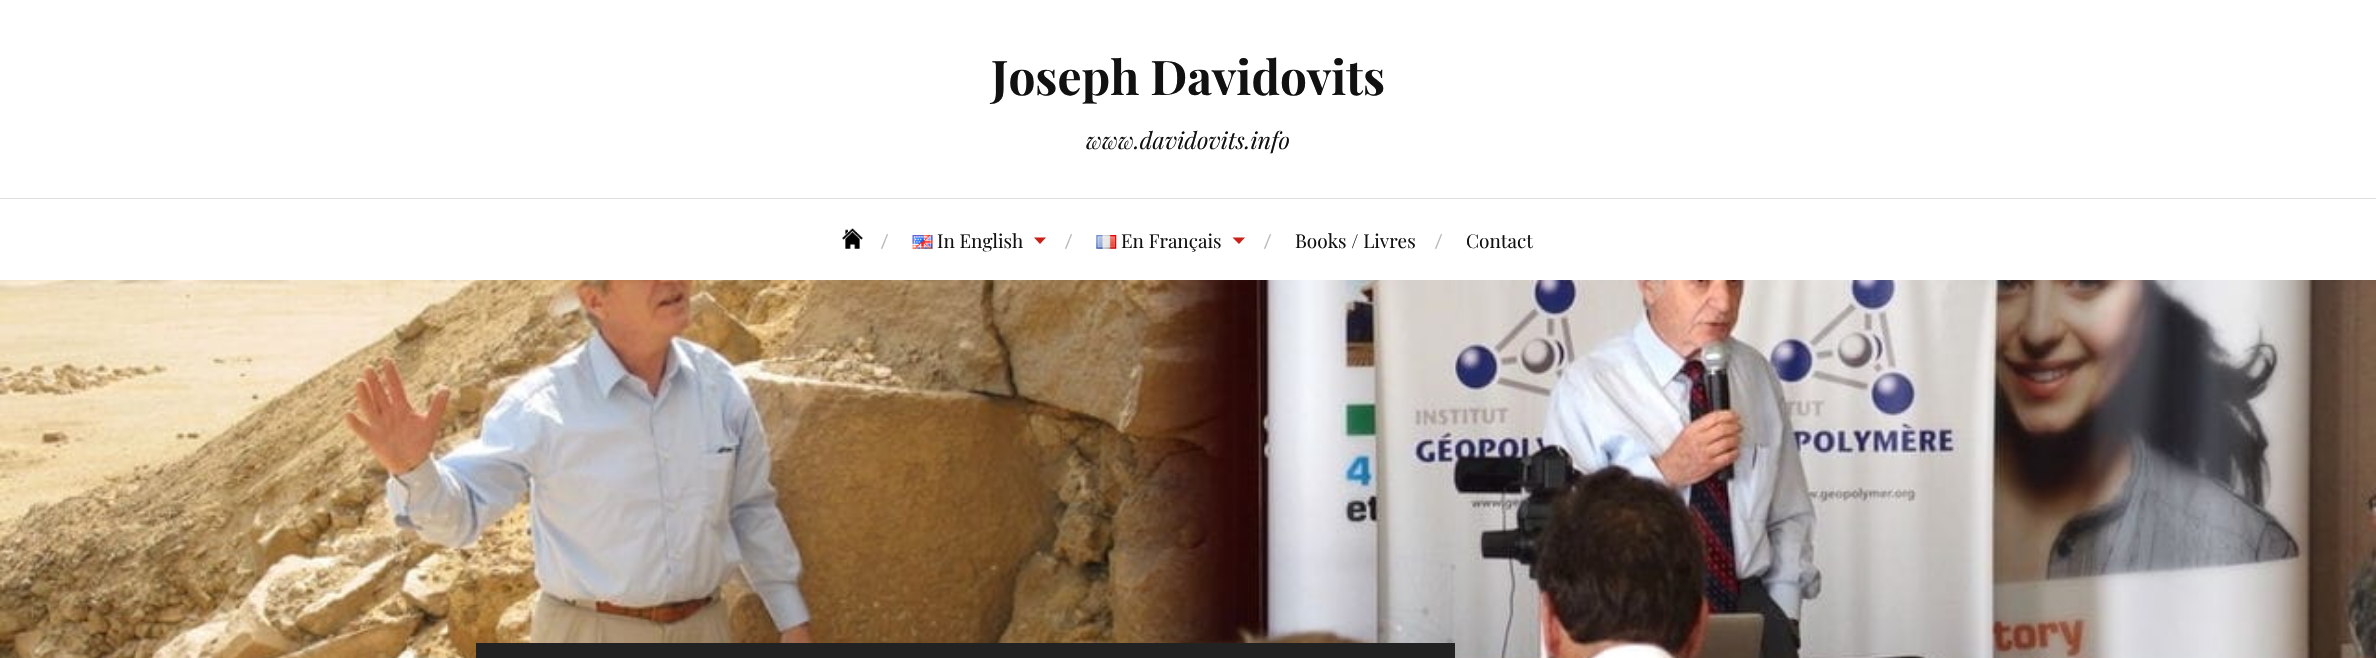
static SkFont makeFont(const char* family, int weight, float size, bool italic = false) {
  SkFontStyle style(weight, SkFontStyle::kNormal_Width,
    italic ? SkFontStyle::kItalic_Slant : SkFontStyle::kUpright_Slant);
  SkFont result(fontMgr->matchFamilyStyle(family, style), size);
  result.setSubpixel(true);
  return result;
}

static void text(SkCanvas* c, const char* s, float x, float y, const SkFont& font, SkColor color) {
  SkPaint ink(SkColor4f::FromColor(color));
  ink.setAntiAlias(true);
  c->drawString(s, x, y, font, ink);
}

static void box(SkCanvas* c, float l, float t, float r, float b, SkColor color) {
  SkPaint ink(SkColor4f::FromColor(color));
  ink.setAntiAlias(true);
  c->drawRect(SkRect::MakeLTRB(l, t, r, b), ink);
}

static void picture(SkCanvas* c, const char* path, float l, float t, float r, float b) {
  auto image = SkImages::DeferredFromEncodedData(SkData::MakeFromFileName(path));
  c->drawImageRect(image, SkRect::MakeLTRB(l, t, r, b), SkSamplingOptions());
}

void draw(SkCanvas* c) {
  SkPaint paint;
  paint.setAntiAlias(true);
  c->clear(0xffffffff);
  SkFont face1 = makeFont("Playfair Display", 700, 47.75f);
  text(c, "Joseph Davidovits", 991, 95, face1, 0xff111111);
  SkFont face2 = makeFont("Playfair Display", 400, 23.4f, true);
  text(c, "www.davidovits.info", 1086, 149, face2, 0xff111111);
  box(c, 0, 198, 2376, 199, 0xffdddddd);
  picture(c, "img_01.png", 842, 228, 863, 249);
  SkFont face3 = makeFont("Lato", 400, 19);
  text(c, "/", 881, 248, face3, 0xffbbbbbb);
  picture(c, "img_02.png", 912, 235, 933, 249);
  SkFont face4 = makeFont("Playfair Display", 400, 19);
  text(c, "In English", 937, 248, face4, 0xff111111);
  paint.setColor(0xffca2017);
  c->drawPath(SkPathBuilder().moveTo(1034, 237.5f).lineTo(1046, 237.5f).lineTo(1040, 244).close().detach(), paint);
  text(c, "/", 1065, 248, face3, 0xffbbbbbb);
  picture(c, "img_03.png", 1096, 235, 1117, 249);
  text(c, "En Français", 1121, 248, face4, 0xff111111);
  c->drawPath(SkPathBuilder().moveTo(1232.5f, 237.5f).lineTo(1245, 237.5f).lineTo(1239, 244).close().detach(), paint);
  text(c, "/", 1264, 248, face3, 0xffbbbbbb);
  text(c, "Books / Livres", 1295, 248, face4, 0xff111111);
  text(c, "/", 1435, 248, face3, 0xffbbbbbb);
  text(c, "Contact", 1466, 248, face4, 0xff111111);
  picture(c, "img_04.png", 0, 280, 2376, 658);
  box(c, 476, 643, 1455, 658, 0xff222222);
}
